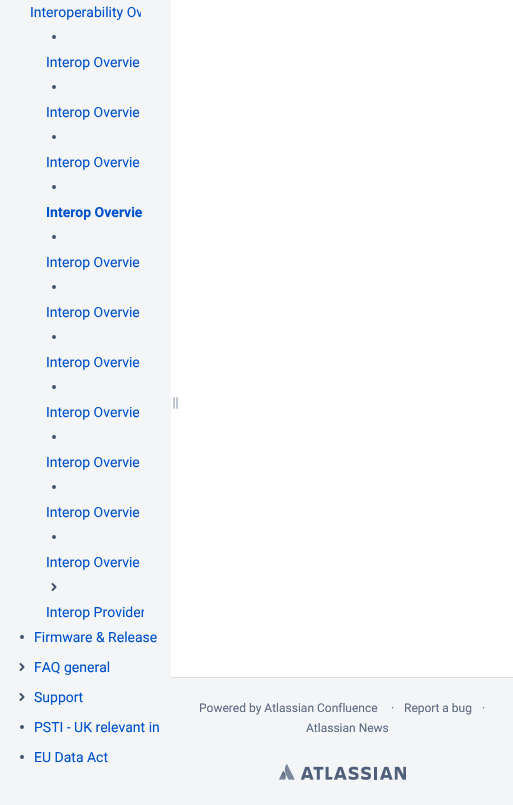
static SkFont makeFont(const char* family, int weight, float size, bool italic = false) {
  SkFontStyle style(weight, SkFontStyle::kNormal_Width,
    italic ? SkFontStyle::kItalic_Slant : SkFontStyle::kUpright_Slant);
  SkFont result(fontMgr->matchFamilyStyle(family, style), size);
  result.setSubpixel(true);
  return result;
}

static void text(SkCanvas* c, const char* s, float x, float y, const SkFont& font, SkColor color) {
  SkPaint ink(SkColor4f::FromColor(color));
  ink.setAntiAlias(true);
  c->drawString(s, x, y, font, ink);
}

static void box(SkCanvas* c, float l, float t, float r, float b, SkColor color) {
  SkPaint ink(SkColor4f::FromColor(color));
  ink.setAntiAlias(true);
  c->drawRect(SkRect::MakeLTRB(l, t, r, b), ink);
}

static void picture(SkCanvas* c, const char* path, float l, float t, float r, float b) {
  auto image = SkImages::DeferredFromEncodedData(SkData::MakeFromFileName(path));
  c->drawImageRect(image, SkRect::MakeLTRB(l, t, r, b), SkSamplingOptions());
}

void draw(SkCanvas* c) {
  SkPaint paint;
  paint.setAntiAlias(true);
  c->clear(0xfff4f5f7);
  c->save();
  c->clipRect(SkRect::MakeLTRB(30, 2, 141, 22));
  SkFont face1 = makeFont("Roboto", 400, 14);
  text(c, "Interoperability Ov", 30, 17, face1, 0xff0052cc);
  c->restore();
  paint.setColor(0xff42526e);
  c->drawCircle(54, 37, 2, paint);
  text(c, "Interop Overvie", 46, 67, face1, 0xff0052cc);
  c->drawCircle(54, 87, 2, paint);
  text(c, "Interop Overvie", 46, 117, face1, 0xff0052cc);
  c->drawCircle(54, 137, 2, paint);
  text(c, "Interop Overvie", 46, 167, face1, 0xff0052cc);
  c->drawCircle(54, 187, 2, paint);
  SkFont face2 = makeFont("Roboto", 700, 14);
  text(c, "Interop Overvie", 46, 217, face2, 0xff0052cc);
  c->drawCircle(54, 237, 2, paint);
  text(c, "Interop Overvie", 46, 267, face1, 0xff0052cc);
  c->drawCircle(54, 287, 2, paint);
  text(c, "Interop Overvie", 46, 317, face1, 0xff0052cc);
  c->drawCircle(54, 337, 2, paint);
  text(c, "Interop Overvie", 46, 367, face1, 0xff0052cc);
  c->drawCircle(54, 387, 2, paint);
  text(c, "Interop Overvie", 46, 417, face1, 0xff0052cc);
  c->drawCircle(54, 437, 2, paint);
  text(c, "Interop Overvie", 46, 467, face1, 0xff0052cc);
  c->drawCircle(54, 487, 2, paint);
  text(c, "Interop Overvie", 46, 517, face1, 0xff0052cc);
  c->drawCircle(54, 537, 2, paint);
  text(c, "Interop Overvie", 46, 567, face1, 0xff0052cc);
  picture(c, "img_01.png", 51, 583, 57, 591);
  c->save();
  c->clipRect(SkRect::MakeLTRB(46, 602, 144, 622));
  text(c, "Interop Provider", 46, 617, face1, 0xff0052cc);
  c->restore();
  c->drawCircle(22, 637, 2, paint);
  text(c, "Firmware & Release", 34, 642, face1, 0xff0052cc);
  picture(c, "img_01.png", 19, 663, 25, 671);
  text(c, "FAQ general", 34, 672, face1, 0xff0052cc);
  picture(c, "img_01.png", 19, 693, 25, 701);
  text(c, "Support", 34, 702, face1, 0xff0052cc);
  c->drawCircle(22, 727, 2, paint);
  text(c, "PSTI - UK relevant in", 34, 732, face1, 0xff0052cc);
  c->drawCircle(22, 757, 2, paint);
  text(c, "EU Data Act", 34, 762, face1, 0xff0052cc);
  box(c, 171, 0, 513, 677, 0xffffffff);
  picture(c, "img_02.png", 173, 397, 178, 409);
  box(c, 171, 677, 513, 678, 0xffdfe1e6);
  SkFont face3 = makeFont("Roboto", 400, 12);
  text(c, "Powered by Atlassian Confluence", 199, 712, face3, 0xff5e6c84);
  text(c, "·", 391, 712, face3, 0xff5e6c84);
  text(c, "Report a bug", 404, 712, face3, 0xff5e6c84);
  text(c, "·", 482, 712, face3, 0xff5e6c84);
  text(c, "Atlassian News", 306, 732, face3, 0xff5e6c84);
  picture(c, "img_03.png", 279, 764, 406, 780);
}
